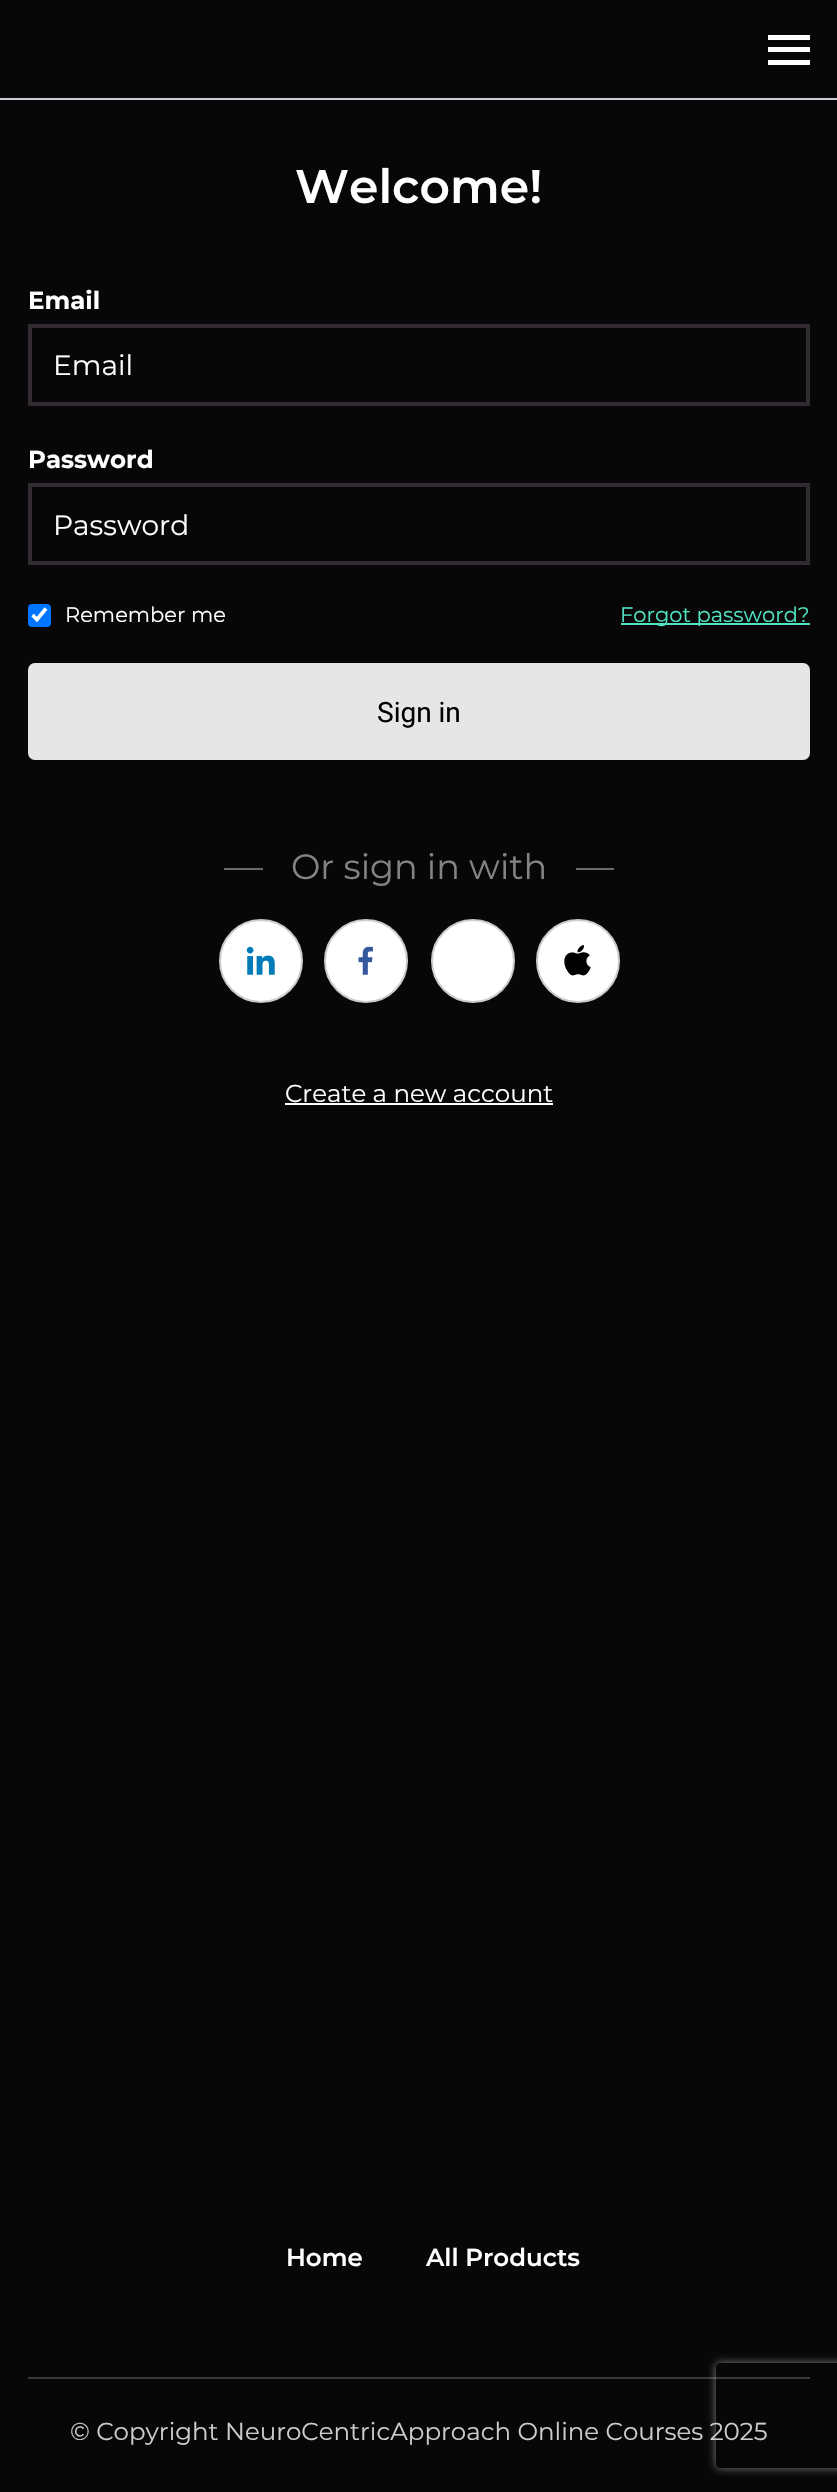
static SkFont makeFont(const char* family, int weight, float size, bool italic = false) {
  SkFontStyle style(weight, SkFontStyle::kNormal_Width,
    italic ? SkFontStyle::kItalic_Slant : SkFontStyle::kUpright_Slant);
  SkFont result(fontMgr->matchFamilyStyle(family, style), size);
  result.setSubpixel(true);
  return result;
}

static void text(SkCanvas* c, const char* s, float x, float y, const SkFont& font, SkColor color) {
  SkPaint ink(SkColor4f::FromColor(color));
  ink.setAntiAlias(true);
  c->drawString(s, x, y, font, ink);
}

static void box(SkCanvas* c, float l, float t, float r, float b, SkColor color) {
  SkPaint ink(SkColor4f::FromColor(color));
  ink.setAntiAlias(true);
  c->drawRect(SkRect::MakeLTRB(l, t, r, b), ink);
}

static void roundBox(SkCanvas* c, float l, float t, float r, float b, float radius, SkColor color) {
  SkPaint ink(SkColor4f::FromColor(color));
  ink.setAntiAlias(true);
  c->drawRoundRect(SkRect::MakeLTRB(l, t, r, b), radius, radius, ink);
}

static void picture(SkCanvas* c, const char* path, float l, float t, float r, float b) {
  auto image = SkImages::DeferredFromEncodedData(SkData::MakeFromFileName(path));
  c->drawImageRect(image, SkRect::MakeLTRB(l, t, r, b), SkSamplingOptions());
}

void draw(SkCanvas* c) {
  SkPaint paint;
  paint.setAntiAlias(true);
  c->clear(0xff080708);
  box(c, 0, 98, 837, 100, 0xffcaccd6);
  box(c, 768, 47, 810, 52, 0xffffffff);
  box(c, 768, 35, 810, 40, 0xffffffff);
  box(c, 768, 60, 810, 65, 0xffffffff);
  SkFont face1 = makeFont("Montserrat", 600, 47.25f);
  text(c, "Welcome!", 295, 203, face1, 0xffffffff);
  SkFont face2 = makeFont("Montserrat", 700, 24.5f);
  text(c, "Email", 28, 309, face2, 0xffffffff);
  paint.setStyle(SkPaint::kStroke_Style);
  paint.setStrokeWidth(4);
  paint.setColor(0xff312b31);
  c->drawRect(SkRect::MakeLTRB(30, 326, 808, 404), paint);
  SkFont face3 = makeFont("Montserrat", 400, 28);
  text(c, "Email", 53, 375, face3, 0xffffffff);
  text(c, "Password", 28, 468, face2, 0xffffffff);
  c->drawRect(SkRect::MakeLTRB(30, 485, 808, 563), paint);
  text(c, "Password", 53, 535, face3, 0xffffffff);
  roundBox(c, 28, 604, 51, 627, 4, 0xff0075ff);
  paint.setStrokeWidth(3.6f);
  paint.setColor(0xffffffff);
  c->drawPath(SkPathBuilder().moveTo(32.5f, 615).lineTo(37, 619.5f).lineTo(46, 608.5f).detach(), paint);
  SkFont face4 = makeFont("Montserrat", 400, 21);
  text(c, "Remember me", 65, 622, face4, 0xffffffff);
  box(c, 621, 623, 810, 625, 0xff50e3c2);
  text(c, "Forgot password?", 620, 622, face4, 0xff50e3c2);
  roundBox(c, 28, 663, 810, 760, 7, 0xffe6e6e6);
  SkFont face5 = makeFont("Roboto", 400, 28);
  text(c, "Sign in", 377, 722, face5, 0xff000000);
  c->save();
  c->clipPath(SkPathBuilder(SkPathFillType::kEvenOdd).moveTo(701, 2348).lineTo(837, 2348).lineTo(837, 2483).lineTo(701, 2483).close().moveTo(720, 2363).lineTo(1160, 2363).cubicTo(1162, 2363, 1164, 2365, 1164, 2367).lineTo(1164, 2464).cubicTo(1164, 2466, 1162, 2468, 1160, 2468).lineTo(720, 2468).cubicTo(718, 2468, 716, 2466, 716, 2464).lineTo(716, 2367).cubicTo(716, 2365, 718, 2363, 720, 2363).close().detach(), true);
  paint.setStyle(SkPaint::kFill_Style);
  paint.setColor(0xff808080);
  paint.setMaskFilter(SkMaskFilter::MakeBlur(kNormal_SkBlurStyle, 4.5f));
  c->drawRoundRect(SkRect::MakeLTRB(716, 2363, 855, 2468), 4, 4, paint);
  paint.setMaskFilter(nullptr);
  c->restore();
  box(c, 224, 868, 614, 870, 0xff6b6a6b);
  box(c, 263, 868, 576, 870, 0xff080708);
  SkFont face6 = makeFont("Montserrat", 400, 35);
  text(c, "Or sign in with", 291, 879, face6, 0xff848384);
  paint.setColor(0xffffffff);
  c->drawCircle(261, 961, 41, paint);
  paint.setStyle(SkPaint::kStroke_Style);
  paint.setStrokeWidth(2);
  paint.setColor(0xffcacccd);
  c->drawCircle(261, 961, 41, paint);
  picture(c, "img_01.png", 246, 946, 275, 975);
  paint.setStyle(SkPaint::kFill_Style);
  paint.setColor(0xffffffff);
  c->drawCircle(366, 961, 41, paint);
  paint.setStyle(SkPaint::kStroke_Style);
  paint.setColor(0xffcacccd);
  c->drawCircle(366, 961, 41, paint);
  picture(c, "img_02.png", 358, 946, 373, 975);
  paint.setStyle(SkPaint::kFill_Style);
  paint.setColor(0xffffffff);
  c->drawCircle(473, 961, 41, paint);
  paint.setStyle(SkPaint::kStroke_Style);
  paint.setColor(0xffcacccd);
  c->drawCircle(473, 961, 41, paint);
  paint.setStyle(SkPaint::kFill_Style);
  paint.setColor(0xffffffff);
  c->drawCircle(578, 961, 41, paint);
  paint.setStyle(SkPaint::kStroke_Style);
  paint.setColor(0xffcacccd);
  c->drawCircle(578, 961, 41, paint);
  picture(c, "img_03.png", 564, 945, 591, 976);
  SkFont face7 = makeFont("Montserrat", 400, 24.5f);
  text(c, "Create a new account", 285, 1102, face7, 0xffffffff);
  box(c, 285, 1103, 553, 1105, 0xffffffff);
  SkFont face8 = makeFont("Montserrat", 600, 24.5f);
  text(c, "Home", 286, 2266, face8, 0xffffffff);
  text(c, "All Products", 426, 2266, face8, 0xffffffff);
  box(c, 28, 2377, 810, 2379, 0x33ffffff);
  text(c, "© Copyright NeuroCentricApproach Online Courses 2025", 70, 2440, face7, 0xffcecdce);
}
